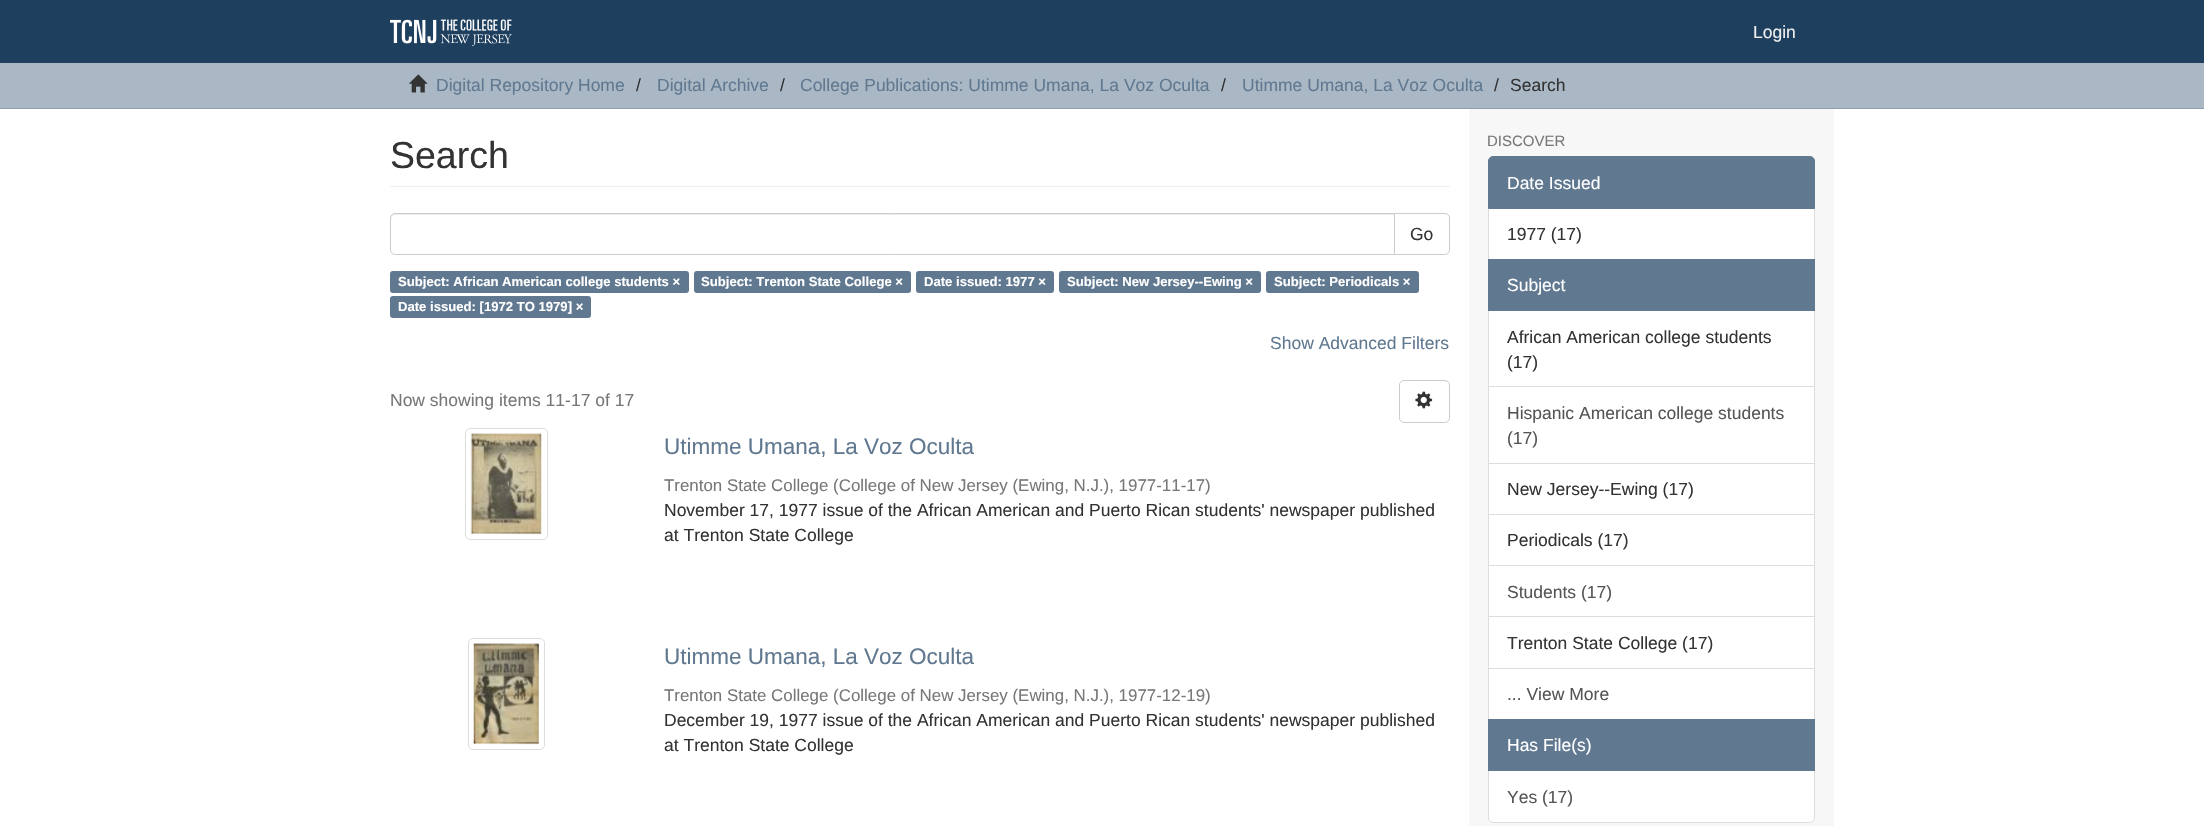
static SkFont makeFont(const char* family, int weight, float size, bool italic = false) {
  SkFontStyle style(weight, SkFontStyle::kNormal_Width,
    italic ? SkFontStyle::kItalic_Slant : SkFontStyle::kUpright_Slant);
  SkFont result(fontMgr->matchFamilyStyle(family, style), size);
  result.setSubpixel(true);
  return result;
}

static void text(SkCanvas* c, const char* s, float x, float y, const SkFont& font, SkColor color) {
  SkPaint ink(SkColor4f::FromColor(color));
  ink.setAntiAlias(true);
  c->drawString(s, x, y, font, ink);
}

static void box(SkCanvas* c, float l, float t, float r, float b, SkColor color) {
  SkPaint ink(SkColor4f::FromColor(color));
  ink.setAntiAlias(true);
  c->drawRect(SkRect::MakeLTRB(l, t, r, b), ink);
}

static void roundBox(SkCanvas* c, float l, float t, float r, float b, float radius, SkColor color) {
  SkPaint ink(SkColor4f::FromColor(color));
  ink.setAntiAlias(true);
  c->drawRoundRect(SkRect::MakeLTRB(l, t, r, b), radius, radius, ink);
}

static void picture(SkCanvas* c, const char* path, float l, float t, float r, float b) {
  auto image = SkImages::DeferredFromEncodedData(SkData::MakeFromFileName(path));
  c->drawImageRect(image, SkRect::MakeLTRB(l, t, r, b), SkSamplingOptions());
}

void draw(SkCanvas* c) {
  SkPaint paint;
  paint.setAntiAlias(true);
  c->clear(0xffffffff);
  box(c, 0, 0, 2204, 63, 0xff1f3f5e);
  picture(c, "img_01.png", 390, 19, 512, 46);
  SkFont face1 = makeFont("Liberation Sans", 400, 17.5f);
  text(c, "Login", 1753, 38, face1, 0xffeeeeee);
  box(c, 0, 63, 2204, 108, 0xffaab8c6);
  box(c, 0, 108, 2204, 109, 0xff8b9eb2);
  picture(c, "img_02.png", 408, 74, 428, 93);
  text(c, "Digital Repository Home", 436, 91, face1, 0xff607890);
  text(c, "/", 636, 91, face1, 0xff333333);
  text(c, "Digital Archive", 657, 91, face1, 0xff607890);
  text(c, "/", 780, 91, face1, 0xff333333);
  text(c, "College Publications: Utimme Umana, La Voz Oculta", 800, 91, face1, 0xff607890);
  text(c, "/", 1221, 91, face1, 0xff333333);
  text(c, "Utimme Umana, La Voz Oculta", 1242, 91, face1, 0xff607890);
  text(c, "/", 1494, 91, face1, 0xff333333);
  text(c, "Search", 1510, 91, face1, 0xff333333);
  box(c, 1469, 109, 1834, 826, 0xfff7f7f7);
  box(c, 390, 186, 1450, 187, 0xffeeeeee);
  SkFont face2 = makeFont("Liberation Sans", 400, 37.5f);
  text(c, "Search", 390, 168, face2, 0xff333333);
  paint.setStyle(SkPaint::kStroke_Style);
  paint.setStrokeWidth(1);
  paint.setColor(0xffcccccc);
  c->drawPath(SkPathBuilder().moveTo(1394.5f, 213.5f).lineTo(1445, 213.5f).cubicTo(1447.5f, 213.5f, 1449.5f, 215.5f, 1449.5f, 218).lineTo(1449.5f, 250).cubicTo(1449.5f, 252.5f, 1447.5f, 254.5f, 1445, 254.5f).lineTo(1394.5f, 254.5f).close().detach(), paint);
  paint.setStyle(SkPaint::kFill_Style);
  paint.setColor(0xffffffff);
  c->drawPath(SkPathBuilder().moveTo(395, 213).lineTo(1395, 213).lineTo(1395, 255).lineTo(395, 255).cubicTo(392, 255, 390, 253, 390, 250).lineTo(390, 218).cubicTo(390, 215, 392, 213, 395, 213).close().detach(), paint);
  paint.setColor(0xffececec);
  c->drawPath(SkPathBuilder().moveTo(395, 215).lineTo(1394, 215).lineTo(1394, 214).lineTo(395, 214).cubicTo(392, 214, 391, 216, 391, 219).cubicTo(391, 217, 393, 215, 395, 215).close().detach(), paint);
  paint.setStyle(SkPaint::kStroke_Style);
  paint.setColor(0xffcccccc);
  c->drawPath(SkPathBuilder().moveTo(395, 213.5f).lineTo(1394.5f, 213.5f).lineTo(1394.5f, 254.5f).lineTo(395, 254.5f).cubicTo(392.5f, 254.5f, 390.5f, 252.5f, 390.5f, 250).lineTo(390.5f, 218).cubicTo(390.5f, 215.5f, 392.5f, 213.5f, 395, 213.5f).close().detach(), paint);
  text(c, "Go", 1410, 240, face1, 0xff333333);
  roundBox(c, 390, 271, 689, 293, 3, 0xff607890);
  SkFont face3 = makeFont("Liberation Sans", 700, 13.1f);
  text(c, "Subject: African American college students ×", 398, 286, face3, 0xffffffff);
  roundBox(c, 694, 271, 911, 293, 3, 0xff607890);
  text(c, "Subject: Trenton State College ×", 701, 286, face3, 0xffffffff);
  roundBox(c, 916, 271, 1054, 293, 3, 0xff607890);
  text(c, "Date issued: 1977 ×", 924, 286, face3, 0xffffffff);
  roundBox(c, 1059, 271, 1261, 293, 3, 0xff607890);
  text(c, "Subject: New Jersey--Ewing ×", 1067, 286, face3, 0xffffffff);
  roundBox(c, 1266, 271, 1419, 293, 3, 0xff607890);
  text(c, "Subject: Periodicals ×", 1274, 286, face3, 0xffffffff);
  roundBox(c, 390, 296, 591, 318, 3, 0xff607890);
  text(c, "Date issued: [1972 TO 1979] ×", 398, 311, face3, 0xffffffff);
  text(c, "Show Advanced Filters", 1270, 349, face1, 0xff607890);
  text(c, "Now showing items 11-17 of 17", 390, 406, face1, 0xff777777);
  c->drawRoundRect(SkRect::MakeLTRB(1399.5f, 380.5f, 1449.5f, 422.5f), 4.5f, 4.5f, paint);
  picture(c, "img_03.png", 1415, 391, 1433, 409);
  paint.setColor(0xffdddddd);
  c->drawRoundRect(SkRect::MakeLTRB(465.5f, 428.5f, 547.5f, 539.5f), 4.5f, 4.5f, paint);
  picture(c, "img_04.png", 470, 433, 542, 535);
  SkFont face4 = makeFont("Liberation Sans", 400, 22.5f);
  text(c, "Utimme Umana, La Voz Oculta", 664, 454, face4, 0xff607890);
  SkFont face5 = makeFont("Liberation Sans", 400, 16.9f);
  text(c, "Trenton State College (College of New Jersey (Ewing, N.J.), 1977-11-17)", 664, 491, face5, 0xff777777);
  text(c, "November 17, 1977 issue of the African American and Puerto Rican students' newspaper published", 664, 516, face1, 0xff333333);
  text(c, "at Trenton State College", 664, 541, face1, 0xff333333);
  c->drawRoundRect(SkRect::MakeLTRB(468.5f, 638.5f, 544.5f, 749.5f), 4.5f, 4.5f, paint);
  picture(c, "img_05.png", 473, 643, 539, 745);
  text(c, "Utimme Umana, La Voz Oculta", 664, 664, face4, 0xff607890);
  text(c, "Trenton State College (College of New Jersey (Ewing, N.J.), 1977-12-19)", 664, 701, face5, 0xff777777);
  text(c, "December 19, 1977 issue of the African American and Puerto Rican students' newspaper published", 664, 726, face1, 0xff333333);
  text(c, "at Trenton State College", 664, 751, face1, 0xff333333);
  SkFont face6 = makeFont("Liberation Sans", 400, 15);
  text(c, "DISCOVER", 1487, 146, face6, 0xff777777);
  paint.setStyle(SkPaint::kFill_Style);
  paint.setColor(0xffffffff);
  c->drawRect(SkRect::MakeLTRB(1488.5f, 208.5f, 1814.5f, 259.5f), paint);
  paint.setStyle(SkPaint::kStroke_Style);
  paint.setColor(0xffdddddd);
  c->drawRect(SkRect::MakeLTRB(1488.5f, 208.5f, 1814.5f, 259.5f), paint);
  paint.setStyle(SkPaint::kFill_Style);
  paint.setColor(0xff607890);
  c->drawPath(SkPathBuilder().moveTo(1493, 156.5f).lineTo(1810, 156.5f).cubicTo(1812.5f, 156.5f, 1814.5f, 158.5f, 1814.5f, 161).lineTo(1814.5f, 208.5f).lineTo(1488.5f, 208.5f).lineTo(1488.5f, 161).cubicTo(1488.5f, 158.5f, 1490.5f, 156.5f, 1493, 156.5f).close().detach(), paint);
  paint.setStyle(SkPaint::kStroke_Style);
  c->drawPath(SkPathBuilder().moveTo(1493, 156.5f).lineTo(1810, 156.5f).cubicTo(1812.5f, 156.5f, 1814.5f, 158.5f, 1814.5f, 161).lineTo(1814.5f, 208.5f).lineTo(1488.5f, 208.5f).lineTo(1488.5f, 161).cubicTo(1488.5f, 158.5f, 1490.5f, 156.5f, 1493, 156.5f).close().detach(), paint);
  text(c, "Date Issued", 1507, 189, face1, 0xffffffff);
  text(c, "1977 (17)", 1507, 240, face1, 0xff333333);
  box(c, 1489, 311, 1814, 386, 0xffffffff);
  paint.setColor(0xffdddddd);
  c->drawRect(SkRect::MakeLTRB(1488.5f, 310.5f, 1814.5f, 387.5f), paint);
  box(c, 1488, 259, 1815, 311, 0xff607890);
  text(c, "Subject", 1507, 291, face1, 0xffffffff);
  text(c, "African American college students", 1507, 343, face1, 0xff333333);
  text(c, "(17)", 1507, 368, face1, 0xff333333);
  paint.setStyle(SkPaint::kFill_Style);
  paint.setColor(0xffffffff);
  c->drawRect(SkRect::MakeLTRB(1488.5f, 386.5f, 1814.5f, 463.5f), paint);
  paint.setStyle(SkPaint::kStroke_Style);
  paint.setColor(0xffdddddd);
  c->drawRect(SkRect::MakeLTRB(1488.5f, 386.5f, 1814.5f, 463.5f), paint);
  text(c, "Hispanic American college students", 1507, 419, face1, 0xff555555);
  text(c, "(17)", 1507, 444, face1, 0xff555555);
  paint.setStyle(SkPaint::kFill_Style);
  paint.setColor(0xffffffff);
  c->drawRect(SkRect::MakeLTRB(1488.5f, 463.5f, 1814.5f, 514.5f), paint);
  paint.setStyle(SkPaint::kStroke_Style);
  paint.setColor(0xffdddddd);
  c->drawRect(SkRect::MakeLTRB(1488.5f, 463.5f, 1814.5f, 514.5f), paint);
  text(c, "New Jersey--Ewing (17)", 1507, 495, face1, 0xff333333);
  paint.setStyle(SkPaint::kFill_Style);
  paint.setColor(0xffffffff);
  c->drawRect(SkRect::MakeLTRB(1488.5f, 514.5f, 1814.5f, 565.5f), paint);
  paint.setStyle(SkPaint::kStroke_Style);
  paint.setColor(0xffdddddd);
  c->drawRect(SkRect::MakeLTRB(1488.5f, 514.5f, 1814.5f, 565.5f), paint);
  text(c, "Periodicals (17)", 1507, 546, face1, 0xff333333);
  box(c, 1489, 566, 1814, 616, 0xffffffff);
  c->drawRect(SkRect::MakeLTRB(1488.5f, 565.5f, 1814.5f, 617.5f), paint);
  text(c, "Students (17)", 1507, 598, face1, 0xff555555);
  paint.setStyle(SkPaint::kFill_Style);
  paint.setColor(0xffffffff);
  c->drawRect(SkRect::MakeLTRB(1488.5f, 616.5f, 1814.5f, 668.5f), paint);
  paint.setStyle(SkPaint::kStroke_Style);
  paint.setColor(0xffdddddd);
  c->drawRect(SkRect::MakeLTRB(1488.5f, 616.5f, 1814.5f, 668.5f), paint);
  text(c, "Trenton State College (17)", 1507, 649, face1, 0xff333333);
  paint.setStyle(SkPaint::kFill_Style);
  paint.setColor(0xffffffff);
  c->drawRect(SkRect::MakeLTRB(1488.5f, 668.5f, 1814.5f, 719.5f), paint);
  paint.setStyle(SkPaint::kStroke_Style);
  paint.setColor(0xffdddddd);
  c->drawRect(SkRect::MakeLTRB(1488.5f, 668.5f, 1814.5f, 719.5f), paint);
  text(c, "... View More", 1507, 700, face1, 0xff555555);
  paint.setStyle(SkPaint::kFill_Style);
  paint.setColor(0xffffffff);
  c->drawPath(SkPathBuilder().moveTo(1488.5f, 770.5f).lineTo(1814.5f, 770.5f).lineTo(1814.5f, 818).cubicTo(1814.5f, 820.5f, 1812.5f, 822.5f, 1810, 822.5f).lineTo(1493, 822.5f).cubicTo(1490.5f, 822.5f, 1488.5f, 820.5f, 1488.5f, 818).close().detach(), paint);
  paint.setStyle(SkPaint::kStroke_Style);
  paint.setColor(0xffdddddd);
  c->drawPath(SkPathBuilder().moveTo(1488.5f, 770.5f).lineTo(1814.5f, 770.5f).lineTo(1814.5f, 818).cubicTo(1814.5f, 820.5f, 1812.5f, 822.5f, 1810, 822.5f).lineTo(1493, 822.5f).cubicTo(1490.5f, 822.5f, 1488.5f, 820.5f, 1488.5f, 818).close().detach(), paint);
  box(c, 1488, 719, 1815, 771, 0xff607890);
  text(c, "Has File(s)", 1507, 751, face1, 0xffffffff);
  text(c, "Yes (17)", 1507, 803, face1, 0xff555555);
}
